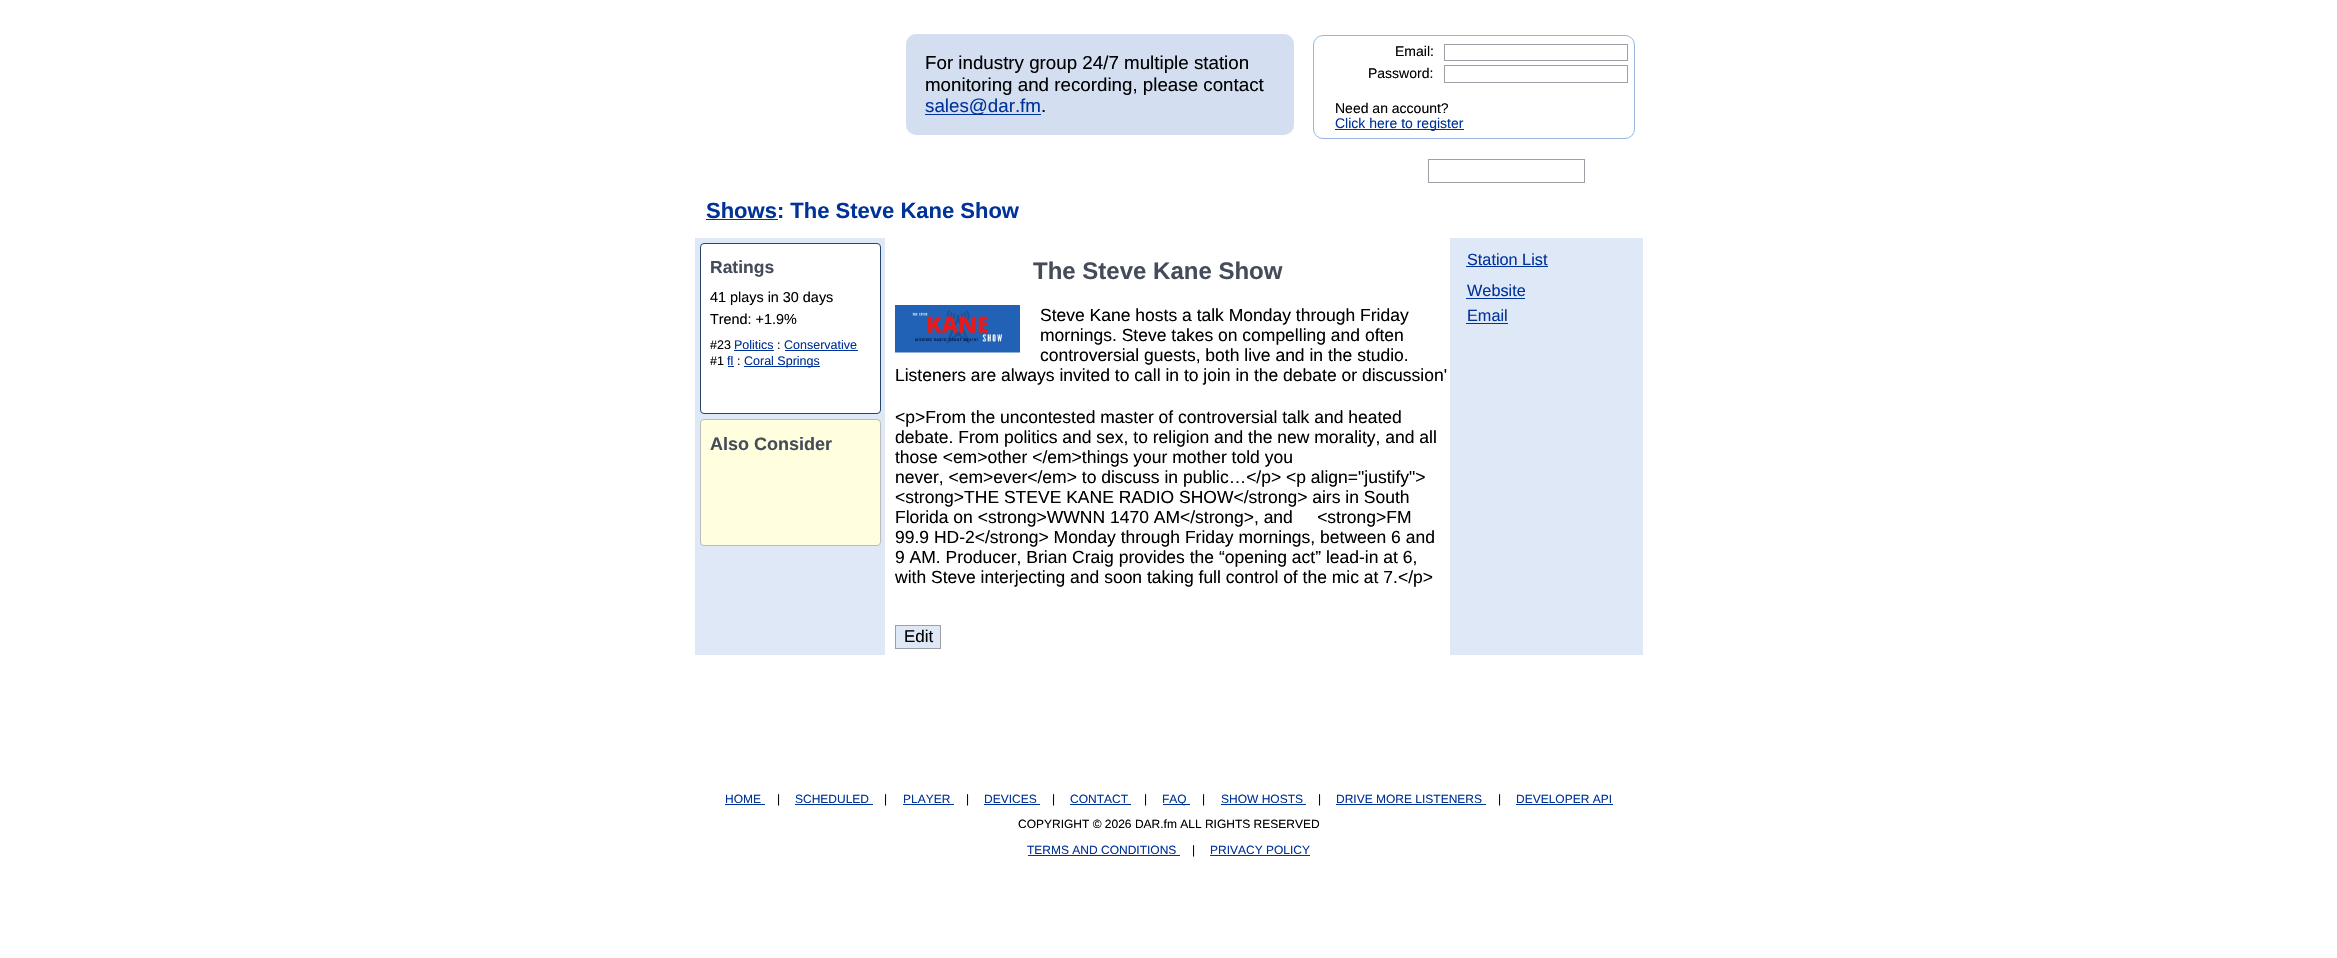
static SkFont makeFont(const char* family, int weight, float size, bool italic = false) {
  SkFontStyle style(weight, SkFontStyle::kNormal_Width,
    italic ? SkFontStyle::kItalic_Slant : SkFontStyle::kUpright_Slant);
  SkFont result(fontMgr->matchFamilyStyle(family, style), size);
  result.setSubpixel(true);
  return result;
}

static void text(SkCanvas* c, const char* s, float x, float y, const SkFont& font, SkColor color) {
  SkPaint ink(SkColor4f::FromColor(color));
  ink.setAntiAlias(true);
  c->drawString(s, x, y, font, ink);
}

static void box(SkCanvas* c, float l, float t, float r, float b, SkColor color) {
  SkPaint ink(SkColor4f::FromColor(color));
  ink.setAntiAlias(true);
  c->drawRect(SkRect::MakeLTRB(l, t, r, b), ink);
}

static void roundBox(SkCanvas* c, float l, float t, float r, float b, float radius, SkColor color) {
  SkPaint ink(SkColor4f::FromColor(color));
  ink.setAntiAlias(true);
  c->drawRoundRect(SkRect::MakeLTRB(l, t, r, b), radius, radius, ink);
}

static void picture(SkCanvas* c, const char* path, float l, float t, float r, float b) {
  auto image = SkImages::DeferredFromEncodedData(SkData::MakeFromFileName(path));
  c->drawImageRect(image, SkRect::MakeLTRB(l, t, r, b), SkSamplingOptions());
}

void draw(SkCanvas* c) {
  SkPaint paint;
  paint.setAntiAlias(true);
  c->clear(0xffffffff);
  roundBox(c, 906, 34, 1294, 135, 10, 0xffd3def0);
  SkFont face1 = makeFont("Liberation Sans", 400, 18.75f);
  text(c, "For industry group 24/7 multiple station", 925, 69, face1, 0xff000000);
  text(c, "monitoring and recording, please contact", 925, 91, face1, 0xff000000);
  box(c, 925, 114, 1041, 115, 0xff003399);
  text(c, "sales@dar.fm", 925, 112, face1, 0xff003399);
  text(c, ".", 1041, 112, face1, 0xff000000);
  paint.setStyle(SkPaint::kStroke_Style);
  paint.setStrokeWidth(1);
  paint.setColor(0xff9ab6de);
  c->drawRoundRect(SkRect::MakeLTRB(1313.5f, 35.5f, 1634.5f, 138.5f), 9.5f, 9.5f, paint);
  SkFont face2 = makeFont("Liberation Sans", 400, 14);
  text(c, "Email:", 1395, 56, face2, 0xff000000);
  paint.setColor(0xff9da0a7);
  c->drawRect(SkRect::MakeLTRB(1444.5f, 44.5f, 1627.5f, 60.5f), paint);
  text(c, "Password:", 1368, 78, face2, 0xff000000);
  c->drawRect(SkRect::MakeLTRB(1444.5f, 65.5f, 1627.5f, 82.5f), paint);
  text(c, "Need an account?", 1335, 113, face2, 0xff000000);
  box(c, 1335, 129, 1464, 130, 0xff003399);
  text(c, "Click here to register", 1335, 128, face2, 0xff003399);
  c->drawRect(SkRect::MakeLTRB(1428.5f, 159.5f, 1584.5f, 182.5f), paint);
  box(c, 695, 238, 1643, 655, 0xffdfe8f7);
  SkFont face3 = makeFont("Liberation Sans", 700, 22);
  text(c, "Shows: The Steve Kane Show", 706, 218, face3, 0xff003399);
  box(c, 706, 219, 778, 220, 0xff003399);
  paint.setStyle(SkPaint::kFill_Style);
  paint.setColor(0xffffffff);
  c->drawRoundRect(SkRect::MakeLTRB(700.5f, 243.5f, 880.5f, 413.5f), 3.5f, 3.5f, paint);
  paint.setStyle(SkPaint::kStroke_Style);
  paint.setColor(0xff26466d);
  c->drawRoundRect(SkRect::MakeLTRB(700.5f, 243.5f, 880.5f, 413.5f), 3.5f, 3.5f, paint);
  SkFont face4 = makeFont("Liberation Sans", 700, 17.5f);
  text(c, "Ratings", 710, 273, face4, 0xff444b59);
  SkFont face5 = makeFont("Liberation Sans", 400, 14.4f);
  text(c, "41 plays in 30 days", 710, 302, face5, 0xff000000);
  text(c, "Trend: +1.9%", 710, 324, face5, 0xff000000);
  SkFont face6 = makeFont("Liberation Sans", 400, 12.5f);
  text(c, "#23", 710, 349, face6, 0xff000000);
  text(c, "Politics", 734, 349, face6, 0xff003399);
  box(c, 734, 350, 774, 351, 0xff003399);
  text(c, ":", 777, 349, face6, 0xff000000);
  text(c, "Conservative", 784, 349, face6, 0xff003399);
  box(c, 785, 350, 858, 351, 0xff003399);
  text(c, "#1", 710, 365, face6, 0xff000000);
  text(c, "fl", 727, 365, face6, 0xff003399);
  box(c, 728, 366, 734, 367, 0xff003399);
  text(c, ":", 737, 365, face6, 0xff000000);
  box(c, 744, 366, 820, 367, 0xff003399);
  text(c, "Coral Springs", 744, 365, face6, 0xff003399);
  paint.setStyle(SkPaint::kFill_Style);
  paint.setColor(0xffffffe0);
  c->drawRoundRect(SkRect::MakeLTRB(700.5f, 419.5f, 880.5f, 545.5f), 3.5f, 3.5f, paint);
  paint.setStyle(SkPaint::kStroke_Style);
  paint.setColor(0xffbbbbbb);
  c->drawRoundRect(SkRect::MakeLTRB(700.5f, 419.5f, 880.5f, 545.5f), 3.5f, 3.5f, paint);
  SkFont face7 = makeFont("Liberation Sans", 700, 18);
  text(c, "Also Consider", 710, 450, face7, 0xff444b59);
  box(c, 885, 238, 1450, 655, 0xffffffff);
  SkFont face8 = makeFont("Liberation Sans", 700, 24);
  text(c, "The Steve Kane Show", 1033, 279, face8, 0xff444b59);
  picture(c, "img_01.png", 895, 305, 1020, 353);
  SkFont face9 = makeFont("Liberation Sans", 400, 17.5f);
  text(c, "Steve Kane hosts a talk Monday through Friday", 1040, 321, face9, 0xff000000);
  text(c, "mornings. Steve takes on compelling and often", 1040, 341, face9, 0xff000000);
  text(c, "controversial guests, both live and in the studio.", 1040, 361, face9, 0xff000000);
  text(c, "Listeners are always invited to call in to join in the debate or discussion'", 895, 381, face9, 0xff000000);
  text(c, "<p>From the uncontested master of controversial talk and heated", 895, 423, face9, 0xff000000);
  text(c, "debate. From politics and sex, to religion and the new morality, and all", 895, 443, face9, 0xff000000);
  text(c, "those <em>other </em>things your mother told you", 895, 463, face9, 0xff000000);
  text(c, "never, <em>ever</em> to discuss in public…</p> <p align=\"justify\">", 895, 483, face9, 0xff000000);
  text(c, "<strong>THE STEVE KANE RADIO SHOW</strong> airs in South", 895, 503, face9, 0xff000000);
  text(c, "Florida on <strong>WWNN 1470 AM</strong>, and     <strong>FM", 895, 523, face9, 0xff000000);
  text(c, "99.9 HD-2</strong> Monday through Friday mornings, between 6 and", 895, 543, face9, 0xff000000);
  text(c, "9 AM. Producer, Brian Craig provides the “opening act” lead-in at 6,", 895, 563, face9, 0xff000000);
  text(c, "with Steve interjecting and soon taking full control of the mic at 7.</p>", 895, 583, face9, 0xff000000);
  paint.setStyle(SkPaint::kFill_Style);
  paint.setColor(0xffdfe8f7);
  c->drawRect(SkRect::MakeLTRB(895.5f, 625.5f, 940.5f, 648.5f), paint);
  paint.setStyle(SkPaint::kStroke_Style);
  paint.setColor(0xff9da0a7);
  c->drawRect(SkRect::MakeLTRB(895.5f, 625.5f, 940.5f, 648.5f), paint);
  SkFont face10 = makeFont("Liberation Sans", 400, 17);
  text(c, "Edit", 904, 642, face10, 0xff000000);
  SkFont face11 = makeFont("Liberation Sans", 400, 16.25f);
  text(c, "Station List", 1467, 265, face11, 0xff003399);
  box(c, 1466, 266, 1548, 267, 0xff003399);
  text(c, "Website", 1467, 296, face11, 0xff003399);
  box(c, 1466, 298, 1525, 299, 0xff003399);
  text(c, "Email", 1467, 321, face11, 0xff003399);
  box(c, 1466, 323, 1508, 324, 0xff003399);
  SkFont face12 = makeFont("Liberation Sans", 400, 12);
  text(c, "HOME", 725, 803, face12, 0xff003399);
  box(c, 725, 804, 765, 805, 0xff003399);
  text(c, "|", 777, 803, face12, 0xff000000);
  text(c, "SCHEDULED", 795, 803, face12, 0xff003399);
  box(c, 795, 804, 873, 805, 0xff003399);
  text(c, "|", 884, 803, face12, 0xff000000);
  text(c, "PLAYER", 903, 803, face12, 0xff003399);
  box(c, 903, 804, 954, 805, 0xff003399);
  text(c, "|", 966, 803, face12, 0xff000000);
  text(c, "DEVICES", 984, 803, face12, 0xff003399);
  box(c, 984, 804, 1040, 805, 0xff003399);
  text(c, "|", 1052, 803, face12, 0xff000000);
  text(c, "CONTACT", 1070, 803, face12, 0xff003399);
  box(c, 1070, 804, 1131, 805, 0xff003399);
  text(c, "|", 1144, 803, face12, 0xff000000);
  box(c, 1163, 804, 1190, 805, 0xff003399);
  text(c, "FAQ", 1162, 803, face12, 0xff003399);
  text(c, "|", 1202, 803, face12, 0xff000000);
  text(c, "SHOW HOSTS", 1221, 803, face12, 0xff003399);
  box(c, 1221, 804, 1306, 805, 0xff003399);
  text(c, "|", 1318, 803, face12, 0xff000000);
  text(c, "DRIVE MORE LISTENERS", 1336, 803, face12, 0xff003399);
  box(c, 1336, 804, 1486, 805, 0xff003399);
  text(c, "|", 1498, 803, face12, 0xff000000);
  text(c, "DEVELOPER API", 1516, 803, face12, 0xff003399);
  box(c, 1516, 804, 1613, 805, 0xff003399);
  text(c, "COPYRIGHT © 2026 DAR.fm ALL RIGHTS RESERVED", 1018, 828, face12, 0xff000000);
  text(c, "TERMS AND CONDITIONS", 1027, 854, face12, 0xff003399);
  box(c, 1028, 855, 1180, 856, 0xff003399);
  text(c, "|", 1192, 854, face12, 0xff000000);
  text(c, "PRIVACY POLICY", 1210, 854, face12, 0xff003399);
  box(c, 1210, 855, 1310, 856, 0xff003399);
}
